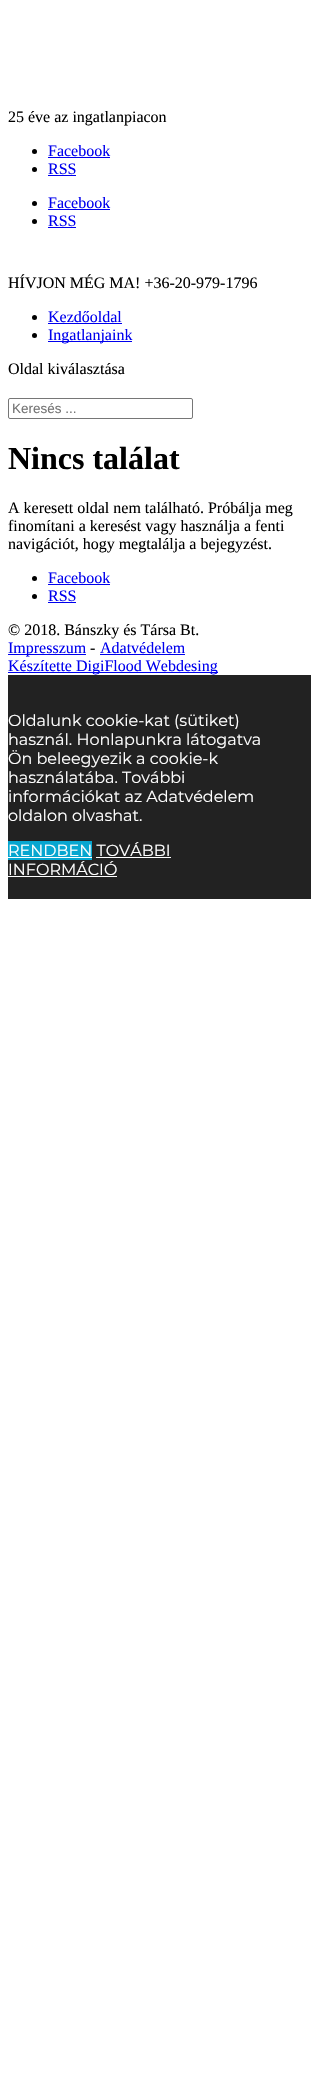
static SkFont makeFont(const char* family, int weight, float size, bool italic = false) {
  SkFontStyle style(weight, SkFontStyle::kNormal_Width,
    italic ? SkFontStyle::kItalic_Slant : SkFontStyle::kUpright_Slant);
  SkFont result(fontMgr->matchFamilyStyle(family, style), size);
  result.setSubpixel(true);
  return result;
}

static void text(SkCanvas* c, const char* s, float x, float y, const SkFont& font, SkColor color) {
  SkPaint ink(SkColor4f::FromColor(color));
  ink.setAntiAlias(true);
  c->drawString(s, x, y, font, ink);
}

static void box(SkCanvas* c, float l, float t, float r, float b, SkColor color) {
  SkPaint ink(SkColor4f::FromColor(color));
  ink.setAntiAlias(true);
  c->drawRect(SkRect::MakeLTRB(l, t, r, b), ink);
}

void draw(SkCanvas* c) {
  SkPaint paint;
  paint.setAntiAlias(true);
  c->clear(0xffffffff);
  SkFont face1 = makeFont("Liberation Serif", 400, 16);
  text(c, "25 éve az ingatlanpiacon", 8, 122, face1, 0xff000000);
  paint.setColor(0xff000000);
  c->drawCircle(34.5f, 151.5f, 2.5f, paint);
  text(c, "Facebook", 48, 156, face1, 0xff0000ee);
  box(c, 48, 157, 110, 158, 0xff0000ee);
  c->drawCircle(34.5f, 169.5f, 2.5f, paint);
  text(c, "RSS", 48, 174, face1, 0xff0000ee);
  box(c, 48, 175, 76, 176, 0xff0000ee);
  c->drawCircle(34.5f, 203.5f, 2.5f, paint);
  text(c, "Facebook", 48, 208, face1, 0xff0000ee);
  box(c, 48, 209, 110, 210, 0xff0000ee);
  c->drawCircle(34.5f, 221.5f, 2.5f, paint);
  text(c, "RSS", 48, 226, face1, 0xff0000ee);
  box(c, 48, 227, 76, 228, 0xff0000ee);
  text(c, "HÍVJON MÉG MA! +36-20-979-1796", 8, 288, face1, 0xff000000);
  c->drawCircle(34.5f, 317.5f, 2.5f, paint);
  text(c, "Kezdőoldal", 48, 322, face1, 0xff0000ee);
  box(c, 48, 323, 122, 324, 0xff0000ee);
  c->drawCircle(34.5f, 335.5f, 2.5f, paint);
  box(c, 48, 341, 132, 342, 0xff0000ee);
  text(c, "Ingatlanjaink", 48, 340, face1, 0xff0000ee);
  text(c, "Oldal kiválasztása", 8, 374, face1, 0xff000000);
  paint.setStyle(SkPaint::kStroke_Style);
  paint.setStrokeWidth(1);
  paint.setColor(0xff767676);
  c->drawRoundRect(SkRect::MakeLTRB(8.5f, 398.5f, 192.5f, 418.5f), 1.5f, 1.5f, paint);
  SkFont face2 = makeFont("Liberation Sans", 400, 13.5f);
  text(c, "Keresés ...", 12, 413, face2, 0xff757575);
  SkFont face3 = makeFont("Liberation Serif", 700, 32);
  text(c, "Nincs találat", 8, 469, face3, 0xff000000);
  text(c, "A keresett oldal nem található. Próbálja meg", 8, 513, face1, 0xff000000);
  text(c, "finomítani a keresést vagy használja a fenti", 8, 531, face1, 0xff000000);
  text(c, "navigációt, hogy megtalálja a bejegyzést.", 8, 549, face1, 0xff000000);
  paint.setStyle(SkPaint::kFill_Style);
  paint.setColor(0xff000000);
  c->drawCircle(34.5f, 578.5f, 2.5f, paint);
  text(c, "Facebook", 48, 583, face1, 0xff0000ee);
  box(c, 48, 584, 110, 585, 0xff0000ee);
  c->drawCircle(34.5f, 596.5f, 2.5f, paint);
  text(c, "RSS", 48, 601, face1, 0xff0000ee);
  box(c, 48, 602, 76, 603, 0xff0000ee);
  text(c, "© 2018. Bánszky és Társa Bt.", 8, 635, face1, 0xff000000);
  box(c, 8, 654, 86, 655, 0xff0000ee);
  text(c, "Impresszum", 8, 653, face1, 0xff0000ee);
  text(c, "-", 90, 653, face1, 0xff000000);
  text(c, "Adatvédelem", 100, 653, face1, 0xff0000ee);
  box(c, 100, 654, 185, 655, 0xff0000ee);
  box(c, 8, 672, 218, 673, 0xff0000ee);
  text(c, "Készítette DigiFlood Webdesing", 8, 671, face1, 0xff0000ee);
  box(c, 8, 675, 311, 899, 0xff222222);
  SkFont face4 = makeFont("Montserrat", 400, 16);
  text(c, "Oldalunk cookie-kat (sütiket)", 8, 726, face4, 0xffffffff);
  text(c, "használ. Honlapunkra látogatva", 8, 745, face4, 0xffffffff);
  text(c, "Ön beleegyezik a cookie-k", 8, 764, face4, 0xffffffff);
  text(c, "használatába. További", 8, 783, face4, 0xffffffff);
  text(c, "információkat az Adatvédelem", 8, 802, face4, 0xffffffff);
  text(c, "oldalon olvashat.", 8, 821, face4, 0xffffffff);
  box(c, 8, 841, 92, 860, 0xff07a6d0);
  text(c, "RENDBEN TOVÁBBI", 8, 856, face4, 0xffffffff);
  box(c, 8, 857, 92, 858, 0xffffffff);
  text(c, "INFORMÁCIÓ", 8, 875, face4, 0xffffffff);
  box(c, 96, 857, 171, 858, 0xffffffff);
  box(c, 8, 876, 117, 877, 0xffffffff);
}
